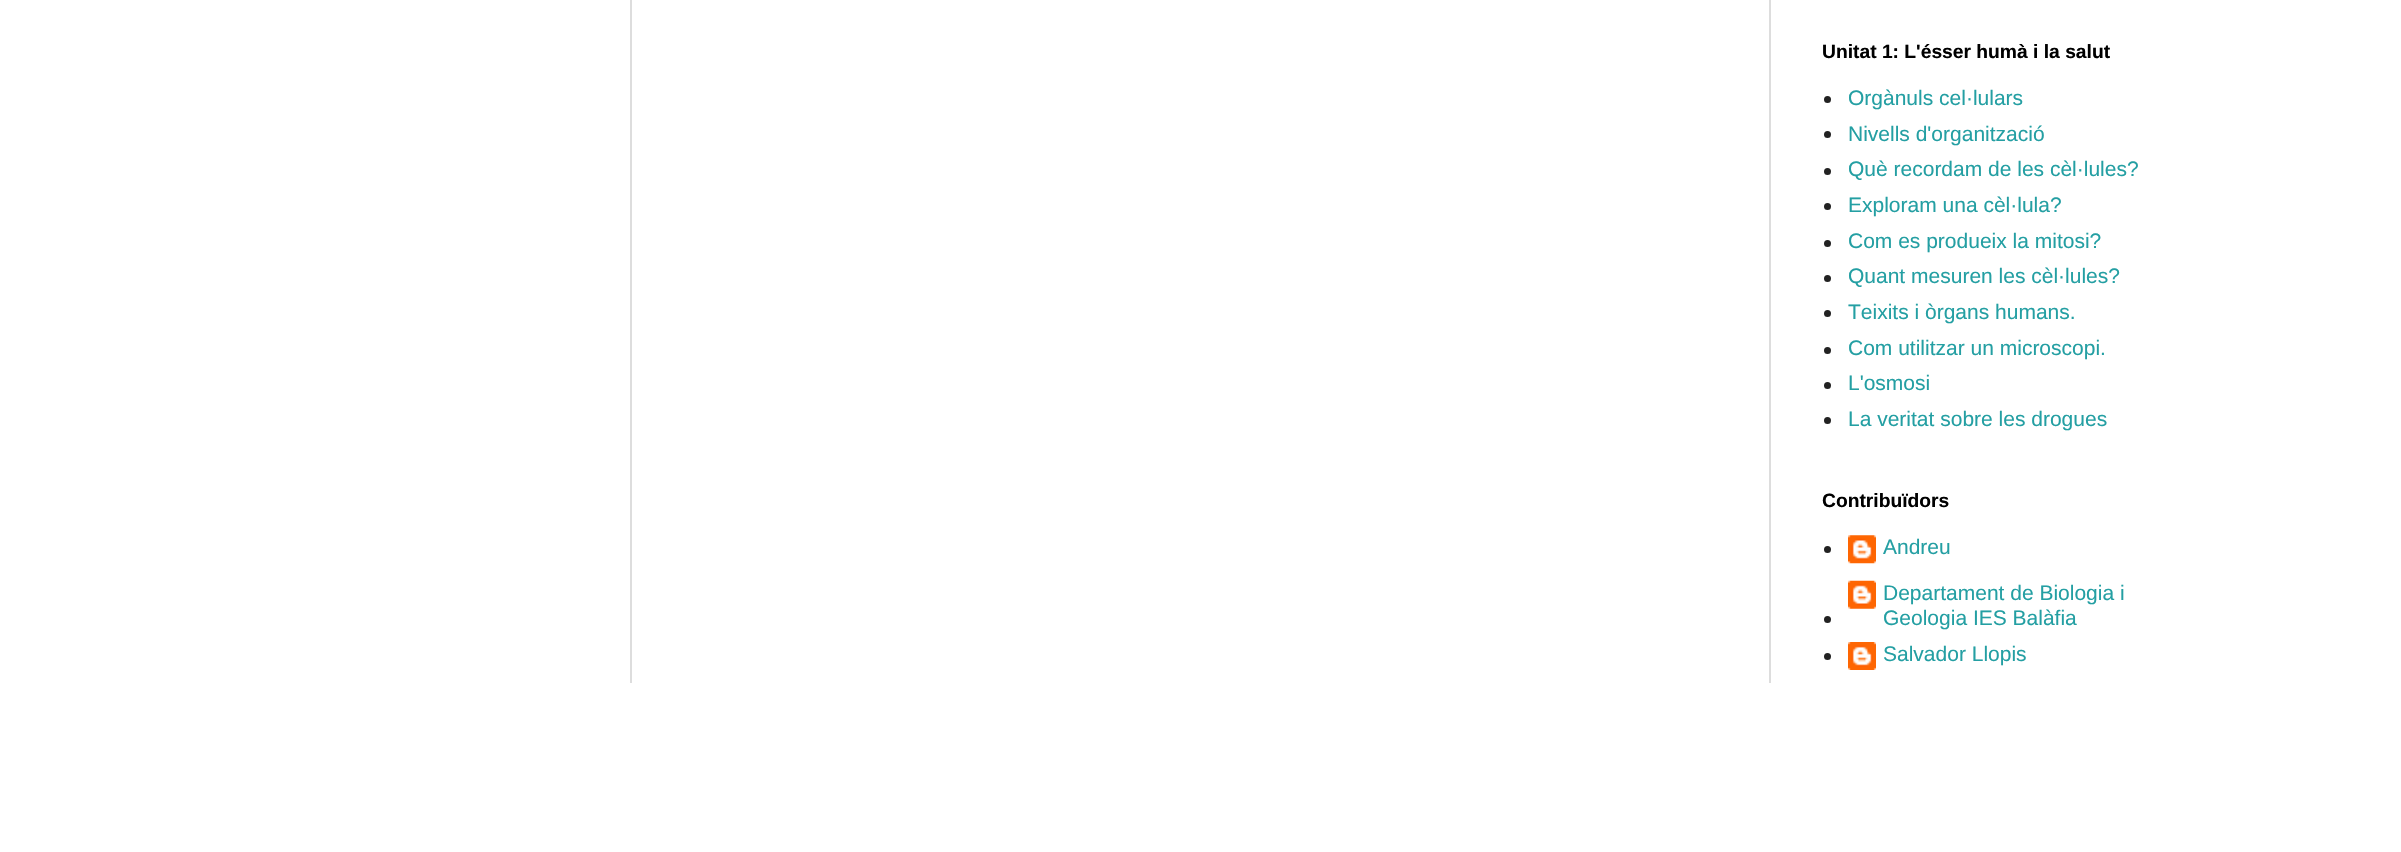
static SkFont makeFont(const char* family, int weight, float size, bool italic = false) {
  SkFontStyle style(weight, SkFontStyle::kNormal_Width,
    italic ? SkFontStyle::kItalic_Slant : SkFontStyle::kUpright_Slant);
  SkFont result(fontMgr->matchFamilyStyle(family, style), size);
  result.setSubpixel(true);
  return result;
}

static void text(SkCanvas* c, const char* s, float x, float y, const SkFont& font, SkColor color) {
  SkPaint ink(SkColor4f::FromColor(color));
  ink.setAntiAlias(true);
  c->drawString(s, x, y, font, ink);
}

static void box(SkCanvas* c, float l, float t, float r, float b, SkColor color) {
  SkPaint ink(SkColor4f::FromColor(color));
  ink.setAntiAlias(true);
  c->drawRect(SkRect::MakeLTRB(l, t, r, b), ink);
}

static void picture(SkCanvas* c, const char* path, float l, float t, float r, float b) {
  auto image = SkImages::DeferredFromEncodedData(SkData::MakeFromFileName(path));
  c->drawImageRect(image, SkRect::MakeLTRB(l, t, r, b), SkSamplingOptions());
}

void draw(SkCanvas* c) {
  SkPaint paint;
  paint.setAntiAlias(true);
  c->clear(0xffffffff);
  box(c, 630, 0, 632, 683, 0xffdddddd);
  box(c, 1769, 0, 1771, 683, 0xffdddddd);
  SkFont face1 = makeFont("Liberation Sans", 700, 19.25f);
  text(c, "Unitat 1: L'ésser humà i la salut", 1822, 58, face1, 0xff000000);
  paint.setColor(0xff222222);
  c->drawCircle(1827.5f, 99.5f, 3.5f, paint);
  SkFont face2 = makeFont("Liberation Sans", 400, 21);
  text(c, "Orgànuls cel·lulars", 1848, 105, face2, 0xff249fa3);
  c->drawCircle(1827.5f, 134.5f, 3.5f, paint);
  text(c, "Nivells d'organització", 1848, 141, face2, 0xff249fa3);
  c->drawCircle(1827.5f, 171.5f, 3.5f, paint);
  text(c, "Què recordam de les cèl·lules?", 1848, 176, face2, 0xff249fa3);
  c->drawCircle(1827.5f, 206.5f, 3.5f, paint);
  text(c, "Exploram una cèl·lula?", 1848, 212, face2, 0xff249fa3);
  c->drawCircle(1827.5f, 243.5f, 3.5f, paint);
  text(c, "Com es produeix la mitosi?", 1848, 248, face2, 0xff249fa3);
  c->drawCircle(1827.5f, 278.5f, 3.5f, paint);
  text(c, "Quant mesuren les cèl·lules?", 1848, 283, face2, 0xff249fa3);
  c->drawCircle(1827.5f, 313.5f, 3.5f, paint);
  text(c, "Teixits i òrgans humans.", 1848, 319, face2, 0xff249fa3);
  c->drawCircle(1827.5f, 350.5f, 3.5f, paint);
  text(c, "Com utilitzar un microscopi.", 1848, 355, face2, 0xff249fa3);
  c->drawCircle(1827.5f, 385.5f, 3.5f, paint);
  text(c, "L'osmosi", 1848, 390, face2, 0xff249fa3);
  c->drawCircle(1827.5f, 420.5f, 3.5f, paint);
  text(c, "La veritat sobre les drogues", 1848, 426, face2, 0xff249fa3);
  text(c, "Contribuïdors", 1822, 507, face1, 0xff000000);
  c->drawCircle(1827.5f, 549.5f, 3.5f, paint);
  picture(c, "img_01.png", 1848, 535, 1876, 564);
  text(c, "Andreu", 1883, 554, face2, 0xff249fa3);
  c->drawCircle(1827.5f, 619.5f, 3.5f, paint);
  picture(c, "img_02.png", 1848, 580, 1876, 609);
  text(c, "Departament de Biologia i", 1883, 600, face2, 0xff249fa3);
  text(c, "Geologia IES Balàfia", 1883, 625, face2, 0xff249fa3);
  c->drawCircle(1827.5f, 656.5f, 3.5f, paint);
  picture(c, "img_03.png", 1848, 642, 1876, 670);
  text(c, "Salvador Llopis", 1883, 661, face2, 0xff249fa3);
}
